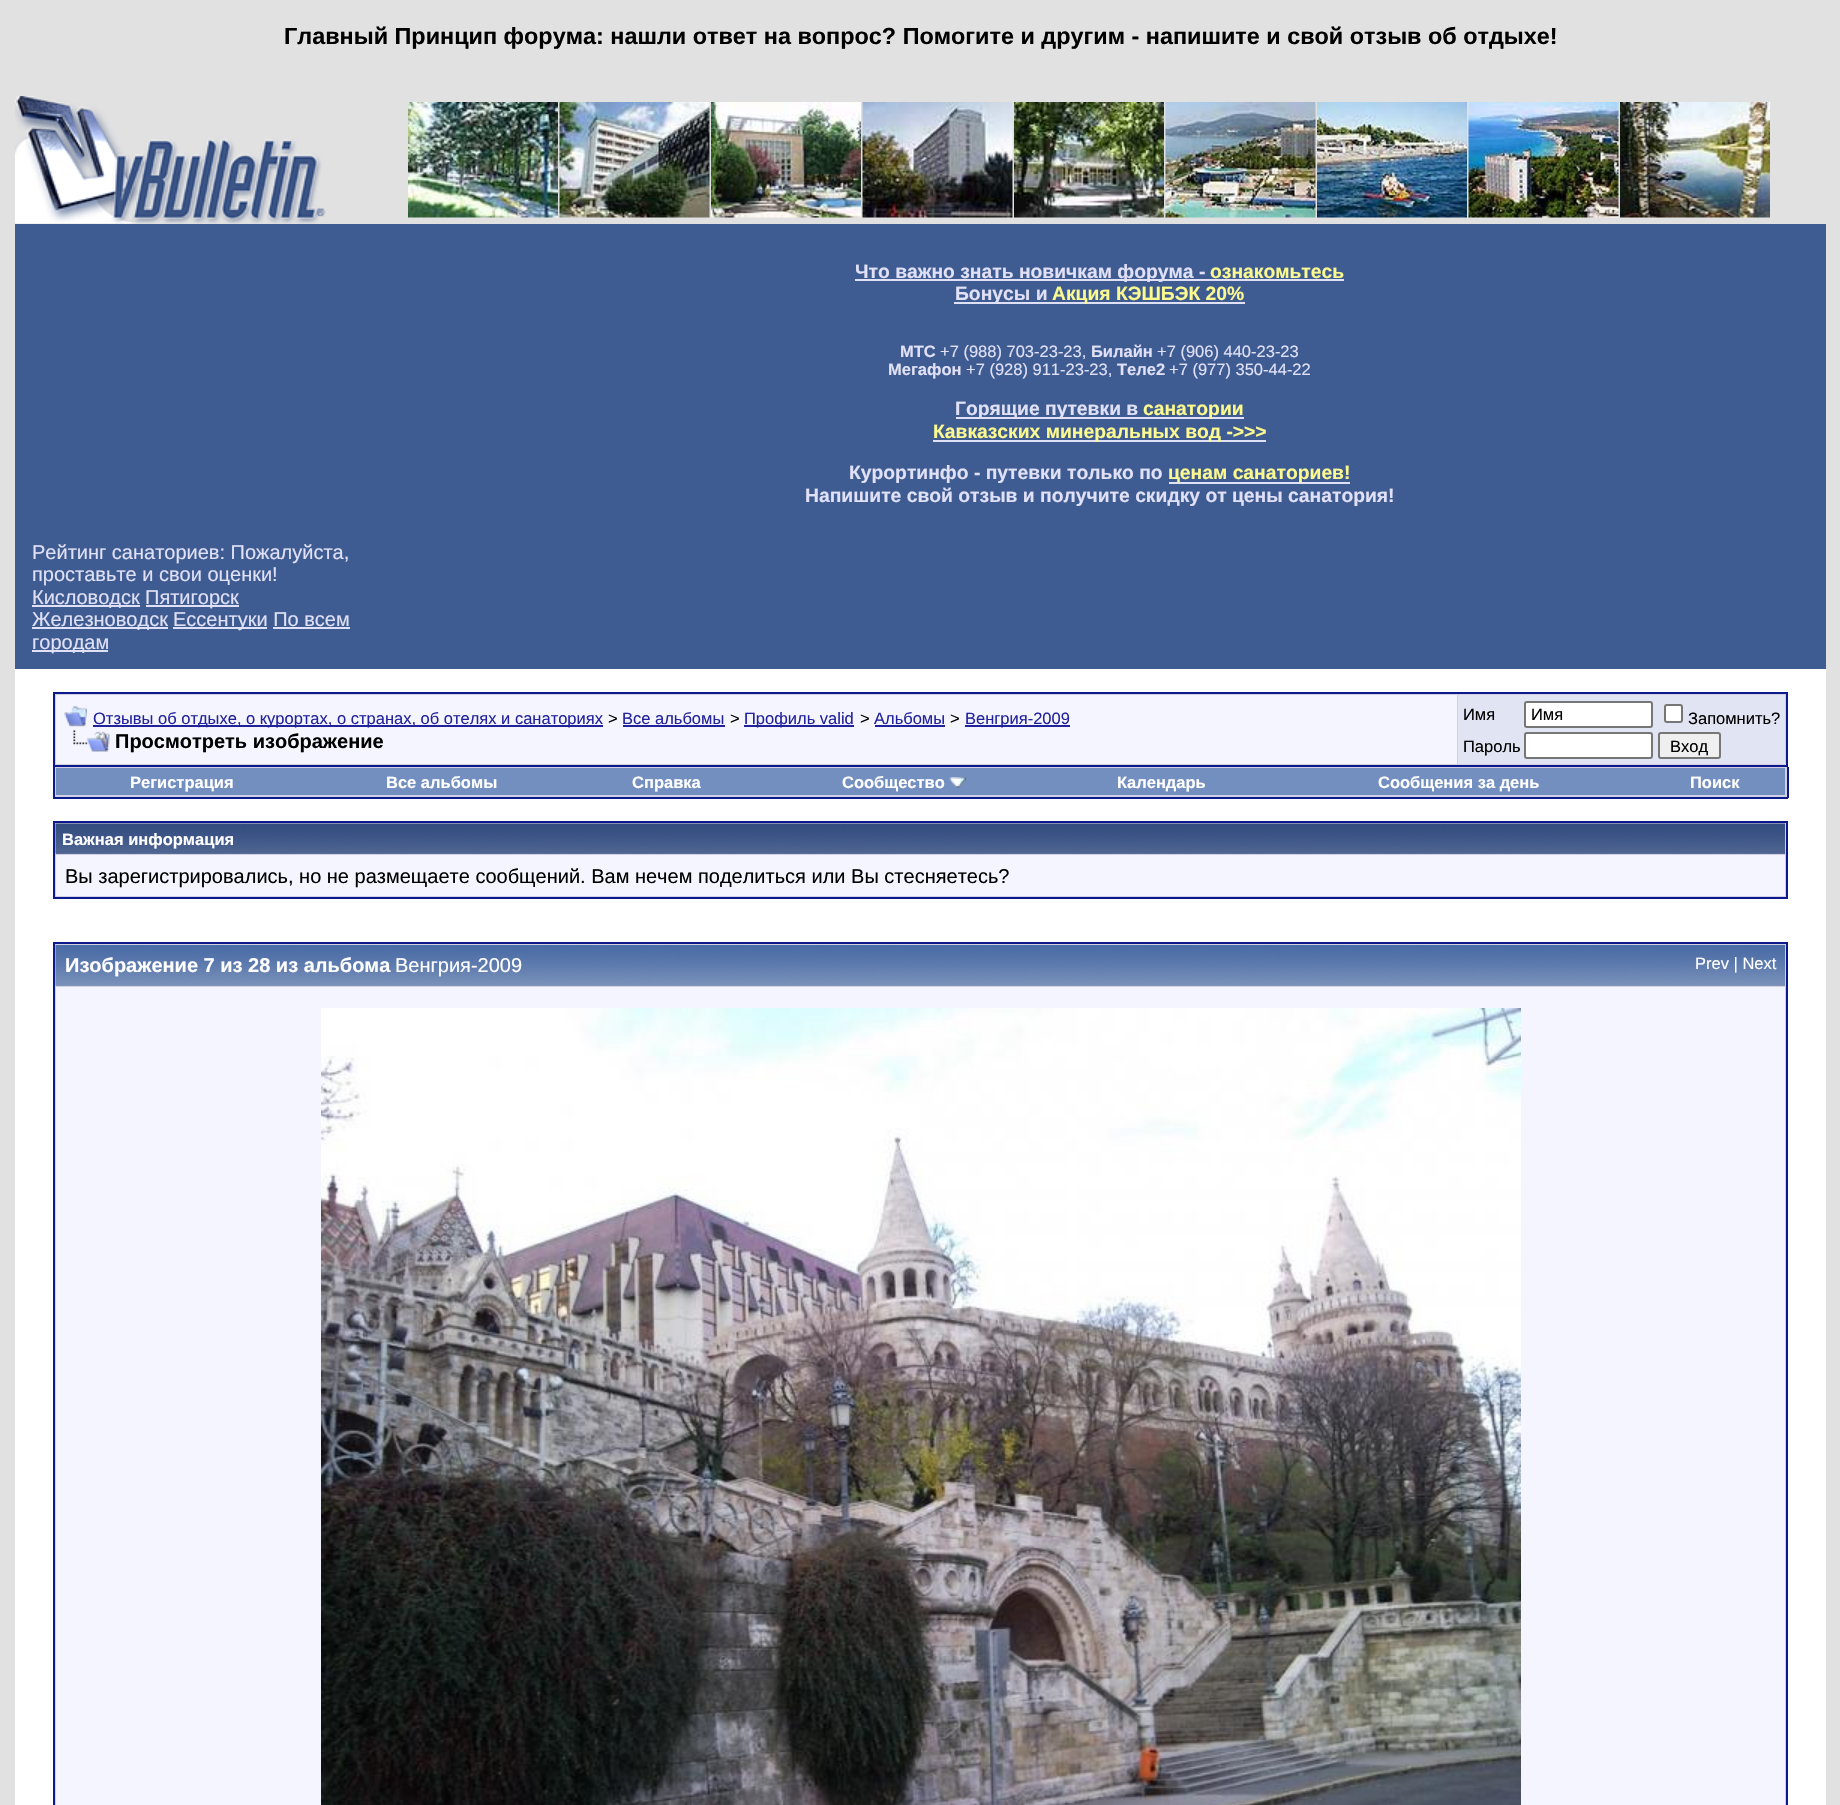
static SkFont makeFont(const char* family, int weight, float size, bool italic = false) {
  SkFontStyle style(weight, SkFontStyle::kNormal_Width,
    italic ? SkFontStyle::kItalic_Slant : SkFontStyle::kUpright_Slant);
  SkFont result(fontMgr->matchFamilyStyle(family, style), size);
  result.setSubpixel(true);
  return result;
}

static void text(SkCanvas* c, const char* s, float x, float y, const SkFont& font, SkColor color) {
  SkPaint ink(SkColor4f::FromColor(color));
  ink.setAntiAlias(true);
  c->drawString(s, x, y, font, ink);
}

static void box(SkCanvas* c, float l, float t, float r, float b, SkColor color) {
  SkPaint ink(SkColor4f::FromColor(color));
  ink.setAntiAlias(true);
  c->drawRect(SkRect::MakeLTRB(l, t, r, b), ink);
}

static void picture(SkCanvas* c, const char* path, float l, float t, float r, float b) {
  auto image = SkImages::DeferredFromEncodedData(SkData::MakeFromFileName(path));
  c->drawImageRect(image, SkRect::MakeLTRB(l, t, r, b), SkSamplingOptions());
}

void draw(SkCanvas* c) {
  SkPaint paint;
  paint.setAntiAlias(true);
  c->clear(0xffe1e1e2);
  SkFont face1 = makeFont("Liberation Sans", 700, 23.4f);
  text(c, "Главный Принцип форума: нашли ответ на вопрос? Помогите и другим - напишите и свой отзыв об отдыхе!", 284, 44, face1, 0xff000000);
  picture(c, "img_01.png", 15, 96, 326, 224);
  picture(c, "img_02.png", 408, 102, 558, 218);
  picture(c, "img_03.png", 559, 102, 710, 218);
  picture(c, "img_04.png", 711, 102, 861, 218);
  picture(c, "img_05.png", 862, 102, 1013, 218);
  picture(c, "img_06.png", 1014, 102, 1164, 218);
  picture(c, "img_07.png", 1165, 102, 1316, 218);
  picture(c, "img_08.png", 1317, 102, 1467, 218);
  picture(c, "img_09.png", 1468, 102, 1619, 218);
  picture(c, "img_10.png", 1620, 102, 1770, 218);
  box(c, 15, 224, 1826, 669, 0xff3e5c92);
  box(c, 855, 279, 1344, 281, 0xffe0e0f6);
  SkFont face2 = makeFont("Liberation Sans", 700, 19.3f);
  text(c, "Что важно знать новичкам форума -", 855, 278, face2, 0xffe0e0f6);
  text(c, "ознакомьтесь", 1210, 278, face2, 0xfffbf98f);
  box(c, 954, 302, 1245, 304, 0xffe0e0f6);
  text(c, "Бонусы и", 955, 300, face2, 0xffe0e0f6);
  text(c, "Акция КЭШБЭК 20%", 1052, 300, face2, 0xfffbf98f);
  SkFont face3 = makeFont("Liberation Sans", 700, 16.5f);
  text(c, "МТС", 900, 357, face3, 0xffe0e0f6);
  SkFont face4 = makeFont("Liberation Sans", 400, 16.5f);
  text(c, "+7 (988) 703-23-23,", 940, 357, face4, 0xffe0e0f6);
  text(c, "Билайн", 1091, 357, face3, 0xffe0e0f6);
  text(c, "+7 (906) 440-23-23", 1157, 357, face4, 0xffe0e0f6);
  text(c, "Мегафон", 888, 375, face3, 0xffe0e0f6);
  text(c, "+7 (928) 911-23-23,", 966, 375, face4, 0xffe0e0f6);
  text(c, "Теле2", 1117, 375, face3, 0xffe0e0f6);
  text(c, "+7 (977) 350-44-22", 1169, 375, face4, 0xffe0e0f6);
  box(c, 956, 417, 1244, 419, 0xffe0e0f6);
  text(c, "Горящие путевки в", 955, 415, face2, 0xffe0e0f6);
  text(c, "санатории", 1143, 415, face2, 0xfffbf98f);
  box(c, 933, 440, 1266, 442, 0xffe0e0f6);
  text(c, "Кавказских минеральных вод ->>>", 933, 438, face2, 0xfffbf98f);
  text(c, "Курортинфо - путевки только по", 849, 479, face2, 0xffe0e0f6);
  box(c, 1169, 482, 1350, 484, 0xffe0e0f6);
  text(c, "ценам санаториев!", 1168, 479, face2, 0xfffbf98f);
  text(c, "Напишите свой отзыв и получите скидку от цены санатория!", 805, 502, face2, 0xffe0e0f6);
  SkFont face5 = makeFont("Liberation Sans", 400, 20);
  text(c, "Рейтинг санаториев: Пожалуйста,", 32, 559, face5, 0xffe0e0f6);
  text(c, "проставьте и свои оценки!", 32, 581, face5, 0xffe0e0f6);
  box(c, 32, 605, 140, 607, 0xffe0e0f6);
  text(c, "Кисловодск", 32, 604, face5, 0xffe0e0f6);
  box(c, 146, 605, 239, 607, 0xffe0e0f6);
  text(c, "Пятигорск", 145, 604, face5, 0xffe0e0f6);
  box(c, 32, 627, 168, 629, 0xffe0e0f6);
  text(c, "Железноводск", 32, 626, face5, 0xffe0e0f6);
  box(c, 173, 627, 267, 629, 0xffe0e0f6);
  text(c, "Ессентуки По всем", 173, 626, face5, 0xffe0e0f6);
  box(c, 32, 650, 108, 652, 0xffe0e0f6);
  text(c, "городам", 32, 649, face5, 0xffe0e0f6);
  box(c, 273, 627, 350, 629, 0xffe0e0f6);
  box(c, 15, 669, 1826, 1805, 0xffffffff);
  paint.setColor(0xffd1d1e1);
  c->drawRect(SkRect::MakeLTRB(54, 693, 1787, 766), paint);
  paint.setStyle(SkPaint::kStroke_Style);
  paint.setStrokeWidth(2);
  paint.setColor(0xff0b198c);
  c->drawRect(SkRect::MakeLTRB(54, 693, 1787, 766), paint);
  box(c, 56, 695, 1457, 764, 0xfff5f5ff);
  picture(c, "img_11.png", 64, 706, 87, 727);
  box(c, 93, 725, 603, 727, 0xff22229c);
  text(c, "Отзывы об отдыхе, о курортах, о странах, об отелях и санаториях", 93, 724, face4, 0xff22229c);
  text(c, ">", 608, 724, face4, 0xff000000);
  text(c, "Все альбомы", 622, 724, face4, 0xff22229c);
  box(c, 623, 725, 725, 727, 0xff22229c);
  text(c, ">", 730, 724, face4, 0xff000000);
  box(c, 744, 725, 854, 727, 0xff22229c);
  text(c, "Профиль valid", 744, 724, face4, 0xff22229c);
  text(c, ">", 860, 724, face4, 0xff000000);
  text(c, "Альбомы", 874, 724, face4, 0xff22229c);
  box(c, 875, 725, 945, 727, 0xff22229c);
  text(c, ">", 950, 724, face4, 0xff000000);
  box(c, 965, 725, 1070, 727, 0xff22229c);
  text(c, "Венгрия-2009", 965, 724, face4, 0xff22229c);
  picture(c, "img_12.png", 73, 730, 110, 752);
  SkFont face6 = makeFont("Liberation Sans", 700, 20);
  text(c, "Просмотреть изображение", 115, 748, face6, 0xff000000);
  box(c, 1458, 695, 1785, 764, 0xffe1e4f2);
  text(c, "Имя", 1463, 720, face4, 0xff000000);
  paint.setStyle(SkPaint::kFill_Style);
  paint.setColor(0xffffffff);
  c->drawRoundRect(SkRect::MakeLTRB(1525, 702, 1652, 727), 2, 2, paint);
  paint.setStyle(SkPaint::kStroke_Style);
  paint.setColor(0xff767676);
  c->drawRoundRect(SkRect::MakeLTRB(1525, 702, 1652, 727), 2, 2, paint);
  text(c, "Имя", 1531, 720, face4, 0xff000000);
  paint.setStyle(SkPaint::kFill_Style);
  paint.setColor(0xffffffff);
  c->drawRoundRect(SkRect::MakeLTRB(1665, 705, 1682, 722), 2, 2, paint);
  paint.setStyle(SkPaint::kStroke_Style);
  paint.setColor(0xff767676);
  c->drawRoundRect(SkRect::MakeLTRB(1665, 705, 1682, 722), 2, 2, paint);
  text(c, "Запомнить?", 1688, 724, face4, 0xff000000);
  text(c, "Пароль", 1463, 752, face4, 0xff000000);
  paint.setStyle(SkPaint::kFill_Style);
  paint.setColor(0xffffffff);
  c->drawRoundRect(SkRect::MakeLTRB(1525, 733, 1652, 758), 2, 2, paint);
  paint.setStyle(SkPaint::kStroke_Style);
  paint.setColor(0xff767676);
  c->drawRoundRect(SkRect::MakeLTRB(1525, 733, 1652, 758), 2, 2, paint);
  paint.setStyle(SkPaint::kFill_Style);
  paint.setColor(0xffefefef);
  c->drawRoundRect(SkRect::MakeLTRB(1659, 733, 1720, 758), 2, 2, paint);
  paint.setStyle(SkPaint::kStroke_Style);
  paint.setColor(0xff767676);
  c->drawRoundRect(SkRect::MakeLTRB(1659, 733, 1720, 758), 2, 2, paint);
  text(c, "Вход", 1670, 752, face4, 0xff000000);
  box(c, 55, 767, 1787, 797, 0xffd1d1e1);
  box(c, 1787, 767, 1789, 798, 0xff0b198c);
  box(c, 53, 797, 1788, 799, 0xff0b198c);
  box(c, 53, 767, 55, 798, 0xff0b198c);
  box(c, 56, 768, 1785, 795, 0xff738fbf);
  text(c, "Регистрация", 130, 788, face3, 0xffffffff);
  text(c, "Все альбомы", 386, 788, face3, 0xffffffff);
  text(c, "Справка", 632, 788, face3, 0xffffffff);
  text(c, "Сообщество", 842, 788, face3, 0xffffffff);
  picture(c, "img_13.png", 949, 777, 966, 788);
  text(c, "Календарь", 1117, 788, face3, 0xffffffff);
  text(c, "Сообщения за день", 1378, 788, face3, 0xffffffff);
  text(c, "Поиск", 1690, 788, face3, 0xffffffff);
  paint.setStyle(SkPaint::kFill_Style);
  paint.setColor(0xffd1d1e1);
  c->drawRect(SkRect::MakeLTRB(54, 822, 1787, 898), paint);
  paint.setStyle(SkPaint::kStroke_Style);
  paint.setColor(0xff0b198c);
  c->drawRect(SkRect::MakeLTRB(54, 822, 1787, 898), paint);
  box(c, 56, 853, 1785, 854, 0xff5c7099);
  picture(c, "img_14.png", 55, 823, 1785, 854);
  text(c, "Важная информация", 62, 845, face3, 0xffffffff);
  box(c, 56, 855, 1785, 896, 0xfff5f5ff);
  text(c, "Вы зарегистрировались, но не размещаете сообщений. Вам нечем поделиться или Вы стесняетесь?", 65, 883, face5, 0xff000000);
  paint.setStyle(SkPaint::kFill_Style);
  paint.setColor(0xffd1d1e1);
  c->drawRect(SkRect::MakeLTRB(54, 943, 1787, 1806), paint);
  paint.setStyle(SkPaint::kStroke_Style);
  paint.setColor(0xff0b198c);
  c->drawRect(SkRect::MakeLTRB(54, 943, 1787, 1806), paint);
  box(c, 56, 985, 1785, 986, 0xff869bbf);
  picture(c, "img_15.png", 55, 945, 1785, 986);
  text(c, "Изображение 7 из 28 из альбома", 65, 972, face6, 0xffffffff);
  text(c, "Венгрия-2009", 395, 972, face5, 0xffffffff);
  text(c, "Prev | Next", 1695, 969, face4, 0xffffffff);
  box(c, 56, 987, 1785, 1805, 0xfff5f5ff);
  picture(c, "img_16.png", 321, 1008, 1521, 1805);
}
